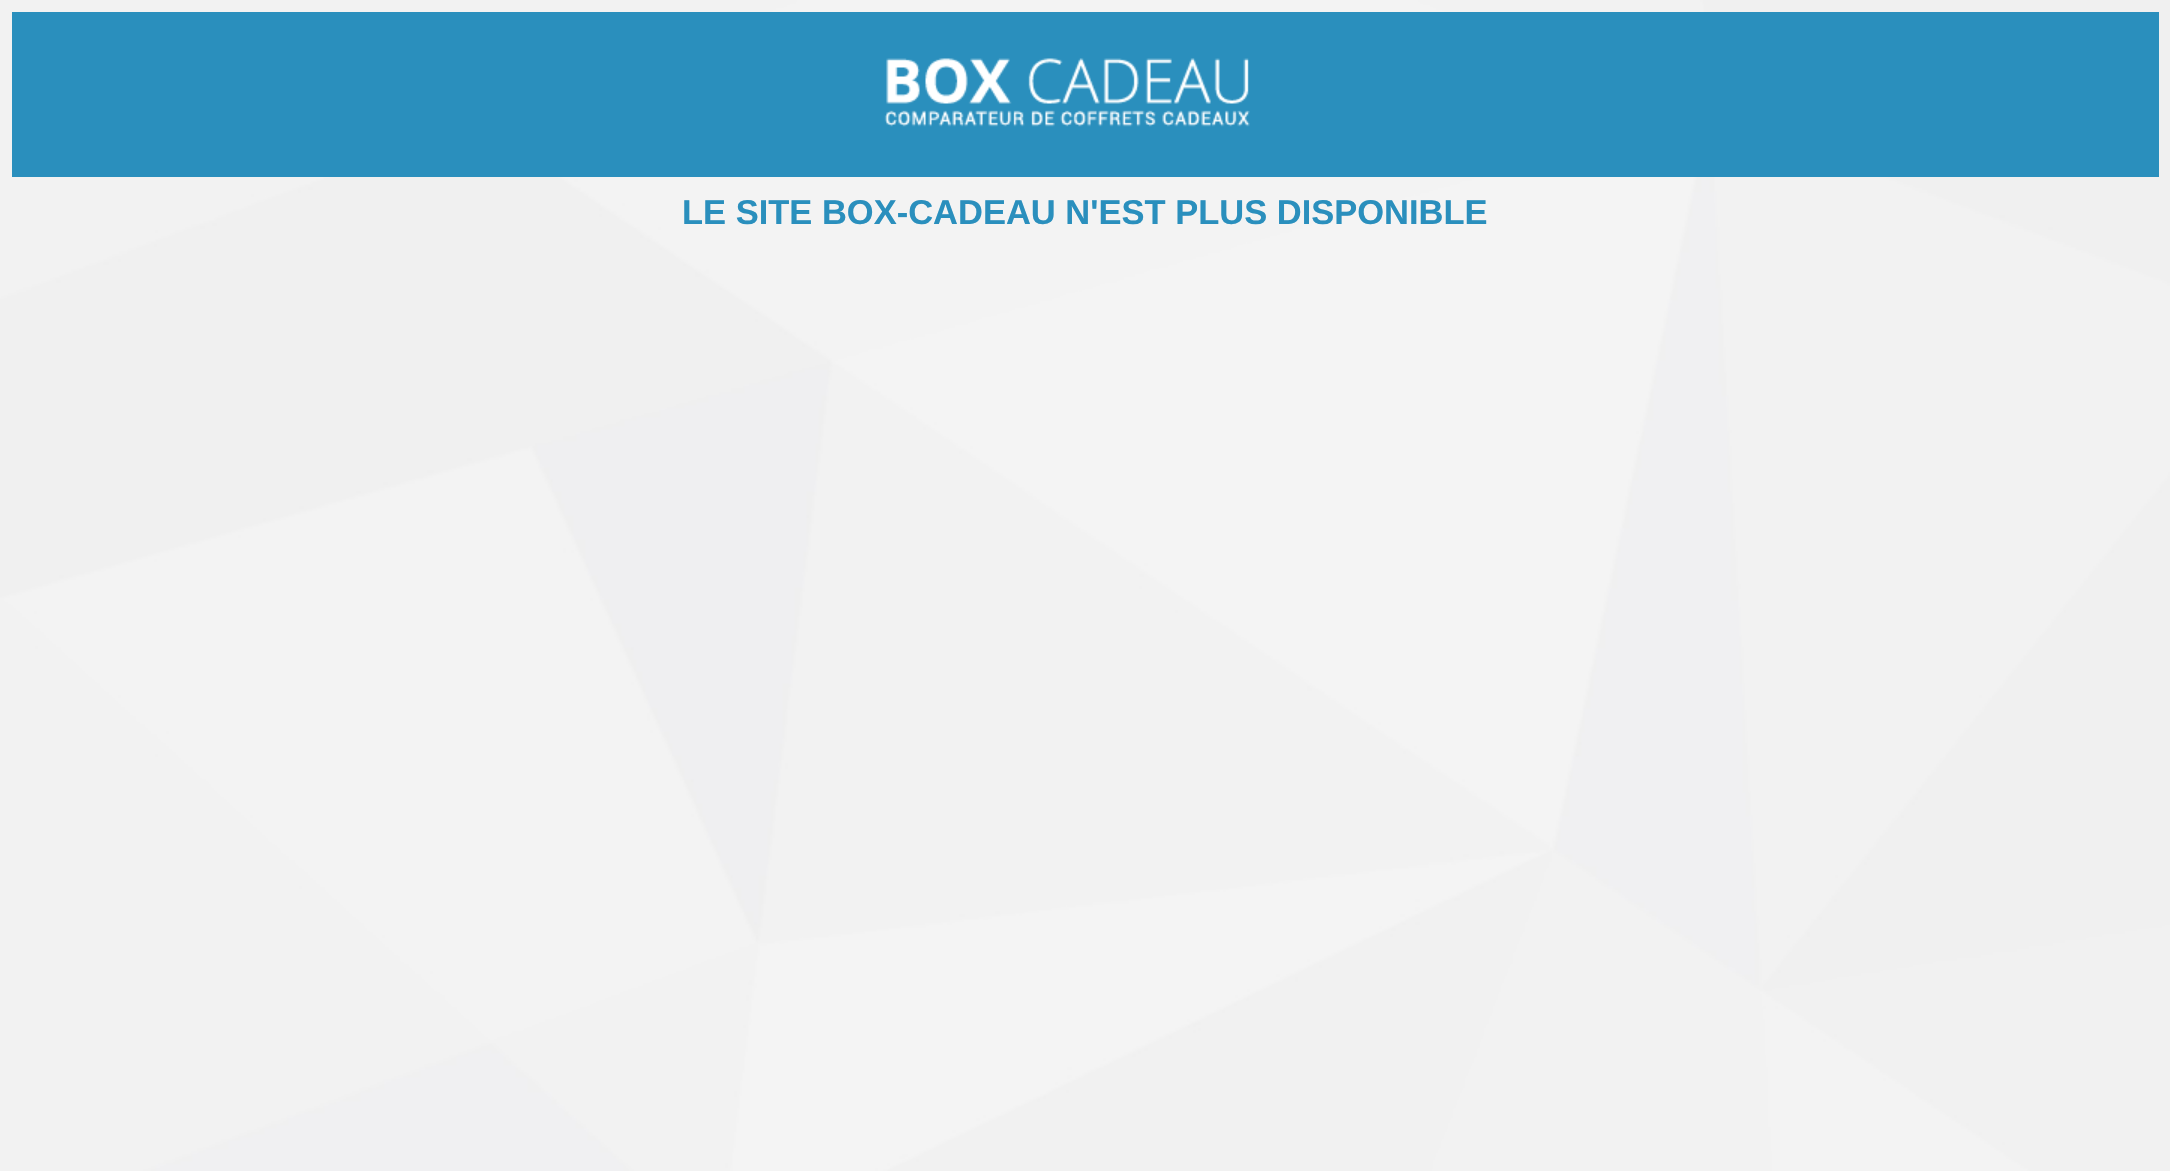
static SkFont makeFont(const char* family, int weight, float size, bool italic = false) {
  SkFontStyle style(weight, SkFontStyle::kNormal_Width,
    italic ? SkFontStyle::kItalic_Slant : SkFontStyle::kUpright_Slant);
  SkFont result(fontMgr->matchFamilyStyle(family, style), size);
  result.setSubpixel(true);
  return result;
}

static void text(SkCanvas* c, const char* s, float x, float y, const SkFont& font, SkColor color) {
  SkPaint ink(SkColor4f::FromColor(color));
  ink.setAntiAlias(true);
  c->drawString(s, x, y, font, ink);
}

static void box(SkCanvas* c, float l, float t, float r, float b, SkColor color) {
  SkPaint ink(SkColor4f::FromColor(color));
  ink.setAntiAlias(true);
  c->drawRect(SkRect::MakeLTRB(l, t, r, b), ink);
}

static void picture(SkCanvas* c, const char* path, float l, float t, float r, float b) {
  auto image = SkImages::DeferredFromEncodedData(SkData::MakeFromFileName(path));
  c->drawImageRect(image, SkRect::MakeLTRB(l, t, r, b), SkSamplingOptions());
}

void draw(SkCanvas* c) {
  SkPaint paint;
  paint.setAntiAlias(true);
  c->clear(0xffffffff);
  picture(c, "img_01.png", 0, 0, 2170, 1171);
  box(c, 12, 12, 2159, 177, 0xff2a8fbd);
  picture(c, "img_02.png", 884, 58, 1250, 127);
  SkFont face1 = makeFont("Liberation Sans", 700, 34.5f);
  text(c, "LE SITE BOX-CADEAU N'EST PLUS DISPONIBLE", 682, 224, face1, 0xff2a8fbd);
}
